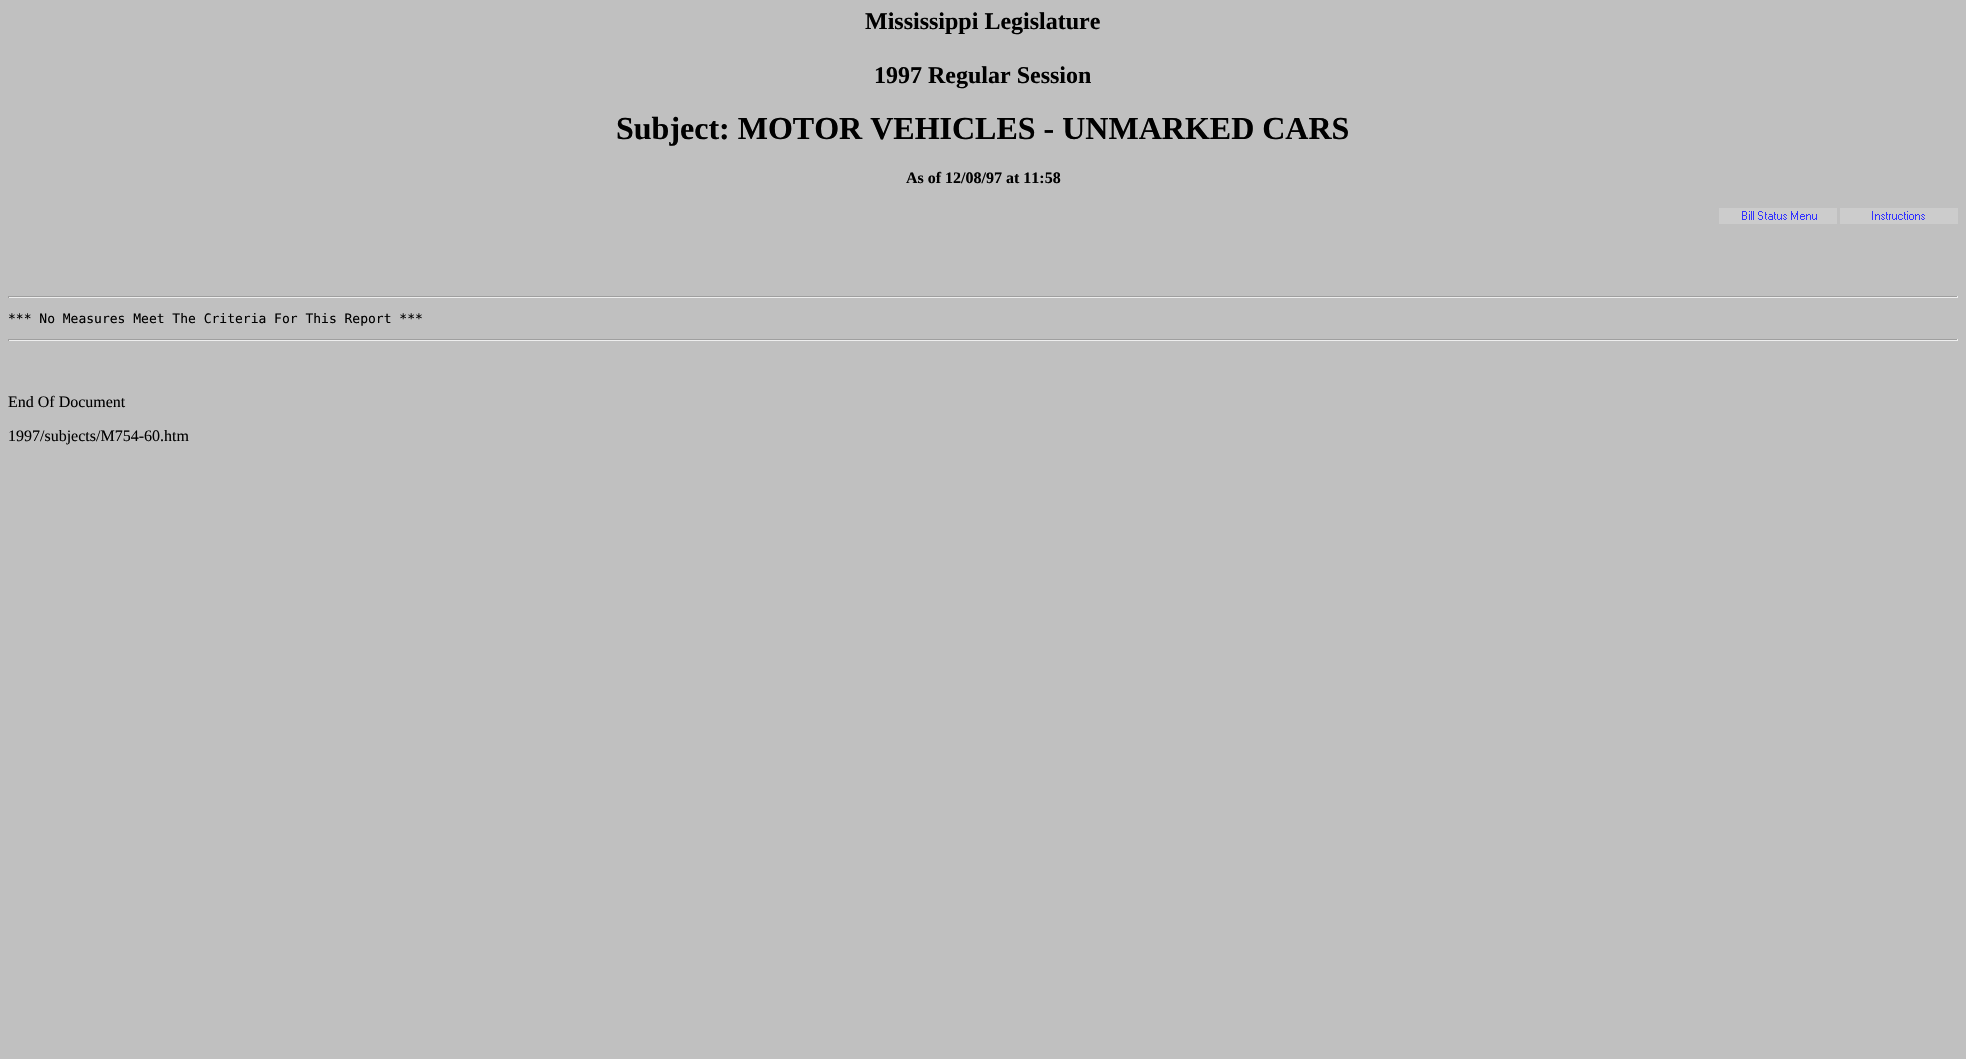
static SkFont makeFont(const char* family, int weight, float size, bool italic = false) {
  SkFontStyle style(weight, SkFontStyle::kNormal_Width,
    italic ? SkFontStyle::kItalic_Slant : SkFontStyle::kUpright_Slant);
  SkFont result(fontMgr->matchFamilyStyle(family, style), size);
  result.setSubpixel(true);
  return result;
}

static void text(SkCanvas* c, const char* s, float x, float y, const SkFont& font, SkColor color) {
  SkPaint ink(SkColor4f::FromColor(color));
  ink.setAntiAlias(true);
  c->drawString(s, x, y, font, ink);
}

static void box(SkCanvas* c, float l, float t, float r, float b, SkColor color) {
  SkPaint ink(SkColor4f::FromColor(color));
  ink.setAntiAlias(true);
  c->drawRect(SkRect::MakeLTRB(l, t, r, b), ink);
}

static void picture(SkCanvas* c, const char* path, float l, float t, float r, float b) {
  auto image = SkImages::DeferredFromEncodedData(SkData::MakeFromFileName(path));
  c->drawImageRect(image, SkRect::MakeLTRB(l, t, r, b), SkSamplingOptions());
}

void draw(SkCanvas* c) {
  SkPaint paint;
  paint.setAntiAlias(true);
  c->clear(0xffc0c0c0);
  SkFont face1 = makeFont("Liberation Serif", 700, 24);
  text(c, "Mississippi Legislature", 865, 29, face1, 0xff000000);
  text(c, "1997 Regular Session", 874, 83, face1, 0xff000000);
  SkFont face2 = makeFont("Liberation Serif", 700, 32);
  text(c, "Subject: MOTOR VEHICLES - UNMARKED CARS", 616, 139, face2, 0xff000000);
  SkFont face3 = makeFont("Liberation Serif", 700, 16);
  text(c, "As of 12/08/97 at 11:58", 906, 183, face3, 0xff000000);
  picture(c, "img_01.png", 1719, 208, 1837, 224);
  picture(c, "img_02.png", 1840, 208, 1958, 224);
  box(c, 8, 296, 1958, 297, 0xff9f9f9f);
  box(c, 1957, 296, 1958, 298, 0xffeeeeee);
  box(c, 8, 297, 1958, 298, 0xffeeeeee);
  box(c, 8, 296, 9, 298, 0xff9f9f9f);
  SkFont face4 = makeFont("DejaVu Sans Mono", 400, 13);
  text(c, "*** No Measures Meet The Criteria For This Report ***", 8, 323, face4, 0xff000000);
  box(c, 8, 339, 1958, 340, 0xff9f9f9f);
  box(c, 1957, 339, 1958, 341, 0xffeeeeee);
  box(c, 8, 340, 1958, 341, 0xffeeeeee);
  box(c, 8, 339, 9, 341, 0xff9f9f9f);
  SkFont face5 = makeFont("Liberation Serif", 400, 16);
  text(c, "End Of Document", 8, 407, face5, 0xff000000);
  text(c, "1997/subjects/M754-60.htm", 8, 441, face5, 0xff000000);
}
